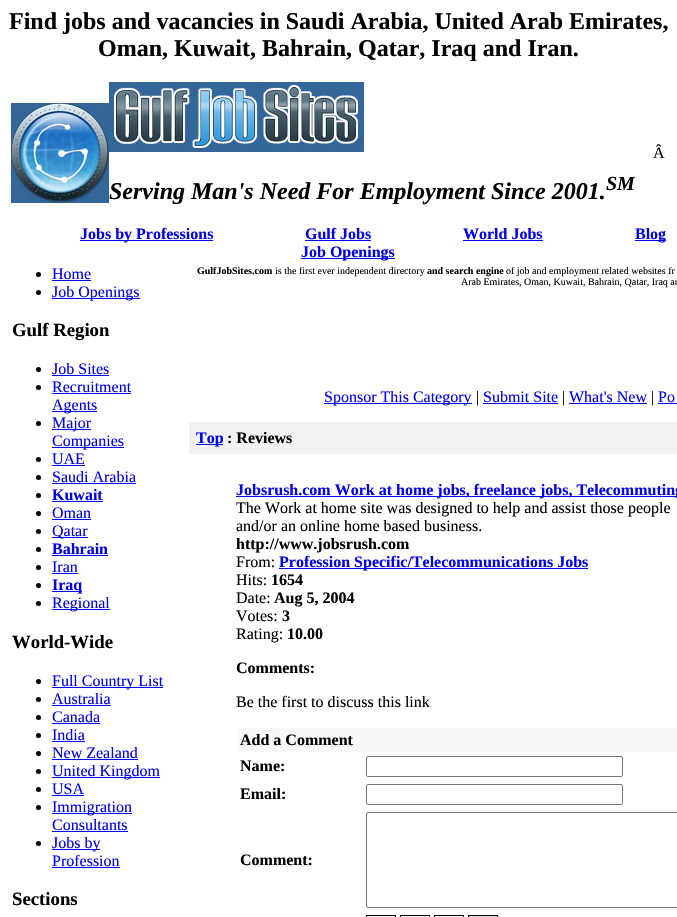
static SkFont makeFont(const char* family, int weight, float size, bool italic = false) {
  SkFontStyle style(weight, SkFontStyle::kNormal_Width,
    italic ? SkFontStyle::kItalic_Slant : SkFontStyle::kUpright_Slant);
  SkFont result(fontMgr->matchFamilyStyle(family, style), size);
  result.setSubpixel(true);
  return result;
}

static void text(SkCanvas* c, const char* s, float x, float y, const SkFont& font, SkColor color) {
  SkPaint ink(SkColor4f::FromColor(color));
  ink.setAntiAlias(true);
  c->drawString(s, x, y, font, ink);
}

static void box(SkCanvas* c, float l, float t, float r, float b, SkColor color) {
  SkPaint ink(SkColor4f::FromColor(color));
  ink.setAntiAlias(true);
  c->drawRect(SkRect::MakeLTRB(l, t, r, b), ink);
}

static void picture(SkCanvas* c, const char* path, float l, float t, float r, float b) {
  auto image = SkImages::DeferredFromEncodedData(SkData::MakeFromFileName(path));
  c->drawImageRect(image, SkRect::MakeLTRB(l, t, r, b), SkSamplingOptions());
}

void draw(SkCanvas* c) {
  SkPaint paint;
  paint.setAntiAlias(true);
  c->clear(0xffffffff);
  SkFont face1 = makeFont("Liberation Serif", 700, 24);
  text(c, "Find jobs and vacancies in Saudi Arabia, United Arab Emirates,", 9, 29, face1, 0xff000000);
  text(c, "Oman, Kuwait, Bahrain, Qatar, Iraq and Iran.", 98, 56, face1, 0xff000000);
  picture(c, "img_01.png", 11, 103, 109, 203);
  SkFont face2 = makeFont("Liberation Serif", 400, 16);
  text(c, "Â", 653, 158, face2, 0xff000000);
  picture(c, "img_02.png", 109, 82, 364, 152);
  SkFont face3 = makeFont("Liberation Serif", 700, 24, true);
  text(c, "Serving Man's Need For Employment Since 2001.", 109, 199, face3, 0xff000000);
  SkFont face4 = makeFont("Liberation Serif", 700, 20, true);
  text(c, "SM", 606, 190, face4, 0xff000000);
  box(c, 80, 240, 213, 241, 0xff0000ee);
  SkFont face5 = makeFont("Liberation Serif", 700, 16);
  text(c, "Jobs by Professions", 80, 239, face5, 0xff0000ee);
  text(c, "Gulf Jobs", 305, 239, face5, 0xff0000ee);
  box(c, 305, 240, 371, 241, 0xff0000ee);
  text(c, "World Jobs", 463, 239, face5, 0xff0000ee);
  box(c, 463, 240, 543, 241, 0xff0000ee);
  box(c, 635, 240, 666, 241, 0xff0000ee);
  text(c, "Blog", 635, 239, face5, 0xff0000ee);
  box(c, 301, 258, 395, 259, 0xff0000ee);
  text(c, "Job Openings", 301, 257, face5, 0xff0000ee);
  paint.setColor(0xff000000);
  c->drawCircle(38.5f, 274.5f, 2.5f, paint);
  text(c, "Home", 52, 279, face2, 0xff0000ee);
  box(c, 52, 280, 91, 281, 0xff0000ee);
  c->drawCircle(38.5f, 292.5f, 2.5f, paint);
  box(c, 52, 298, 140, 299, 0xff0000ee);
  text(c, "Job Openings", 52, 297, face2, 0xff0000ee);
  SkFont face6 = makeFont("Liberation Serif", 700, 18.75f);
  text(c, "Gulf Region", 12, 336, face6, 0xff000000);
  c->drawCircle(38.5f, 369.5f, 2.5f, paint);
  text(c, "Job Sites", 52, 374, face2, 0xff0000ee);
  box(c, 52, 375, 109, 376, 0xff0000ee);
  c->drawCircle(38.5f, 387.5f, 2.5f, paint);
  text(c, "Recruitment", 52, 392, face2, 0xff0000ee);
  box(c, 52, 393, 131, 394, 0xff0000ee);
  box(c, 52, 411, 97, 412, 0xff0000ee);
  text(c, "Agents", 52, 410, face2, 0xff0000ee);
  c->drawCircle(38.5f, 423.5f, 2.5f, paint);
  box(c, 52, 429, 91, 430, 0xff0000ee);
  text(c, "Major", 52, 428, face2, 0xff0000ee);
  box(c, 52, 447, 124, 448, 0xff0000ee);
  text(c, "Companies", 52, 446, face2, 0xff0000ee);
  c->drawCircle(38.5f, 459.5f, 2.5f, paint);
  text(c, "UAE", 52, 464, face2, 0xff0000ee);
  box(c, 52, 465, 85, 466, 0xff0000ee);
  c->drawCircle(38.5f, 477.5f, 2.5f, paint);
  text(c, "Saudi Arabia", 52, 482, face2, 0xff0000ee);
  box(c, 52, 483, 136, 484, 0xff0000ee);
  c->drawCircle(38.5f, 495.5f, 2.5f, paint);
  text(c, "Kuwait", 52, 500, face5, 0xff0000ee);
  box(c, 52, 501, 103, 502, 0xff0000ee);
  c->drawCircle(38.5f, 513.5f, 2.5f, paint);
  text(c, "Oman", 52, 518, face2, 0xff0000ee);
  box(c, 52, 519, 91, 520, 0xff0000ee);
  c->drawCircle(38.5f, 531.5f, 2.5f, paint);
  box(c, 52, 537, 88, 538, 0xff0000ee);
  text(c, "Qatar", 52, 536, face2, 0xff0000ee);
  c->drawCircle(38.5f, 549.5f, 2.5f, paint);
  text(c, "Bahrain", 52, 554, face5, 0xff0000ee);
  box(c, 52, 555, 108, 556, 0xff0000ee);
  c->drawCircle(38.5f, 567.5f, 2.5f, paint);
  text(c, "Iran", 52, 572, face2, 0xff0000ee);
  box(c, 52, 573, 78, 574, 0xff0000ee);
  c->drawCircle(38.5f, 585.5f, 2.5f, paint);
  box(c, 52, 591, 82, 592, 0xff0000ee);
  text(c, "Iraq", 52, 590, face5, 0xff0000ee);
  c->drawCircle(38.5f, 603.5f, 2.5f, paint);
  box(c, 52, 609, 110, 610, 0xff0000ee);
  text(c, "Regional", 52, 608, face2, 0xff0000ee);
  text(c, "World-Wide", 12, 648, face6, 0xff000000);
  c->drawCircle(38.5f, 681.5f, 2.5f, paint);
  box(c, 52, 687, 163, 688, 0xff0000ee);
  text(c, "Full Country List", 52, 686, face2, 0xff0000ee);
  c->drawCircle(38.5f, 699.5f, 2.5f, paint);
  text(c, "Australia", 52, 704, face2, 0xff0000ee);
  box(c, 52, 705, 111, 706, 0xff0000ee);
  c->drawCircle(38.5f, 717.5f, 2.5f, paint);
  text(c, "Canada", 52, 722, face2, 0xff0000ee);
  box(c, 52, 723, 100, 724, 0xff0000ee);
  c->drawCircle(38.5f, 735.5f, 2.5f, paint);
  text(c, "India", 52, 740, face2, 0xff0000ee);
  box(c, 52, 741, 85, 742, 0xff0000ee);
  c->drawCircle(38.5f, 753.5f, 2.5f, paint);
  text(c, "New Zealand", 52, 758, face2, 0xff0000ee);
  box(c, 52, 759, 138, 760, 0xff0000ee);
  c->drawCircle(38.5f, 771.5f, 2.5f, paint);
  box(c, 52, 777, 160, 778, 0xff0000ee);
  text(c, "United Kingdom", 52, 776, face2, 0xff0000ee);
  c->drawCircle(38.5f, 789.5f, 2.5f, paint);
  text(c, "USA", 52, 794, face2, 0xff0000ee);
  box(c, 52, 795, 84, 796, 0xff0000ee);
  c->drawCircle(38.5f, 807.5f, 2.5f, paint);
  box(c, 52, 813, 132, 814, 0xff0000ee);
  text(c, "Immigration", 52, 812, face2, 0xff0000ee);
  text(c, "Consultants", 52, 830, face2, 0xff0000ee);
  box(c, 52, 831, 128, 832, 0xff0000ee);
  c->drawCircle(38.5f, 843.5f, 2.5f, paint);
  box(c, 52, 849, 100, 850, 0xff0000ee);
  text(c, "Jobs by", 52, 848, face2, 0xff0000ee);
  text(c, "Profession", 52, 866, face2, 0xff0000ee);
  box(c, 52, 867, 120, 868, 0xff0000ee);
  text(c, "Sections", 12, 905, face6, 0xff000000);
  SkFont face7 = makeFont("Liberation Serif", 700, 10);
  text(c, "GulfJobSites.com", 197, 274, face7, 0xff000000);
  SkFont face8 = makeFont("Liberation Serif", 400, 10);
  text(c, "is the first ever independent directory", 275, 274, face8, 0xff000000);
  text(c, "and search engine", 427, 274, face7, 0xff000000);
  text(c, "of job and employment related websites fr", 506, 274, face8, 0xff000000);
  text(c, "Arab Emirates, Oman, Kuwait, Bahrain, Qatar, Iraq an", 461, 285, face8, 0xff000000);
  box(c, 324, 403, 472, 404, 0xff0000ee);
  text(c, "Sponsor This Category", 324, 402, face2, 0xff0000ee);
  text(c, "|", 476, 402, face2, 0xff000000);
  text(c, "Submit Site", 483, 402, face2, 0xff0000ee);
  box(c, 483, 403, 558, 404, 0xff0000ee);
  text(c, "|", 562, 402, face2, 0xff000000);
  text(c, "What's New", 569, 402, face2, 0xff0000ee);
  box(c, 569, 403, 647, 404, 0xff0000ee);
  text(c, "|", 651, 402, face2, 0xff000000);
  text(c, "Po", 658, 402, face2, 0xff0000ee);
  box(c, 658, 403, 677, 404, 0xff0000ee);
  box(c, 189, 422, 677, 454, 0xfff2f2f2);
  box(c, 196, 444, 223, 445, 0xff0000ee);
  text(c, "Top", 196, 443, face5, 0xff0000ee);
  text(c, ": Reviews", 227, 443, face5, 0xff000000);
  box(c, 236, 496, 677, 497, 0xff0000ee);
  text(c, "Jobsrush.com Work at home jobs, freelance jobs, Telecommuting", 236, 495, face5, 0xff0000ee);
  text(c, "The Work at home site was designed to help and assist those people", 236, 513, face2, 0xff000000);
  text(c, "and/or an online home based business.", 236, 531, face2, 0xff000000);
  text(c, "http://www.jobsrush.com", 236, 549, face5, 0xff000000);
  text(c, "From:", 236, 567, face2, 0xff000000);
  box(c, 279, 568, 588, 569, 0xff0000ee);
  text(c, "Profession Specific/Telecommunications Jobs", 279, 567, face5, 0xff0000ee);
  text(c, "Hits:", 236, 585, face2, 0xff000000);
  text(c, "1654", 271, 585, face5, 0xff000000);
  text(c, "Date:", 236, 603, face2, 0xff000000);
  text(c, "Aug 5, 2004", 274, 603, face5, 0xff000000);
  text(c, "Votes:", 236, 621, face2, 0xff000000);
  text(c, "3", 282, 621, face5, 0xff000000);
  text(c, "Rating:", 236, 639, face2, 0xff000000);
  text(c, "10.00", 287, 639, face5, 0xff000000);
  text(c, "Comments:", 236, 673, face5, 0xff000000);
  text(c, "Be the first to discuss this link", 236, 707, face2, 0xff000000);
  box(c, 237, 728, 677, 752, 0xfff8f8f8);
  text(c, "Add a Comment", 240, 745, face5, 0xff000000);
  text(c, "Name:", 240, 771, face5, 0xff000000);
  paint.setStyle(SkPaint::kStroke_Style);
  paint.setStrokeWidth(1);
  paint.setColor(0xff767676);
  c->drawRoundRect(SkRect::MakeLTRB(366.5f, 756.5f, 622.5f, 776.5f), 1.5f, 1.5f, paint);
  text(c, "Email:", 240, 799, face5, 0xff000000);
  c->drawRoundRect(SkRect::MakeLTRB(366.5f, 784.5f, 622.5f, 804.5f), 1.5f, 1.5f, paint);
  text(c, "Comment:", 240, 865, face5, 0xff000000);
  c->drawRoundRect(SkRect::MakeLTRB(366.5f, 812.5f, 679.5f, 907.5f), 1.5f, 1.5f, paint);
  picture(c, "img_03.png", 366, 915, 396, 917);
  picture(c, "img_04.png", 400, 915, 430, 917);
  picture(c, "img_03.png", 434, 915, 464, 917);
  picture(c, "img_05.png", 468, 915, 498, 917);
}
